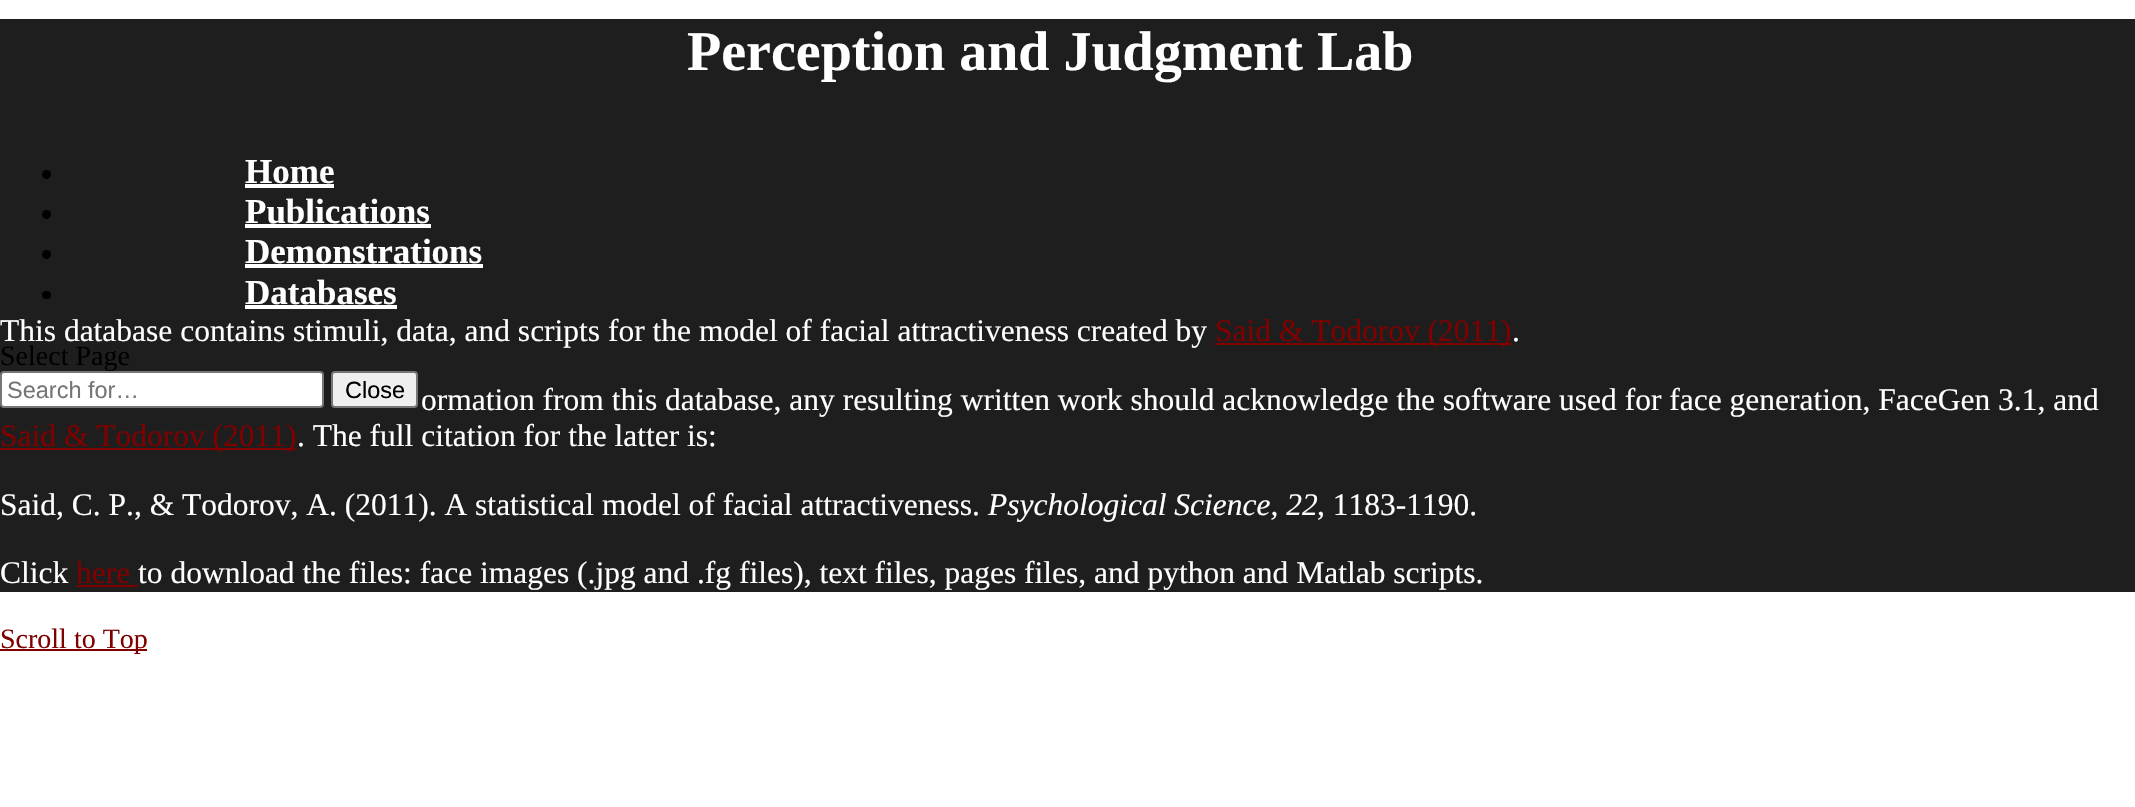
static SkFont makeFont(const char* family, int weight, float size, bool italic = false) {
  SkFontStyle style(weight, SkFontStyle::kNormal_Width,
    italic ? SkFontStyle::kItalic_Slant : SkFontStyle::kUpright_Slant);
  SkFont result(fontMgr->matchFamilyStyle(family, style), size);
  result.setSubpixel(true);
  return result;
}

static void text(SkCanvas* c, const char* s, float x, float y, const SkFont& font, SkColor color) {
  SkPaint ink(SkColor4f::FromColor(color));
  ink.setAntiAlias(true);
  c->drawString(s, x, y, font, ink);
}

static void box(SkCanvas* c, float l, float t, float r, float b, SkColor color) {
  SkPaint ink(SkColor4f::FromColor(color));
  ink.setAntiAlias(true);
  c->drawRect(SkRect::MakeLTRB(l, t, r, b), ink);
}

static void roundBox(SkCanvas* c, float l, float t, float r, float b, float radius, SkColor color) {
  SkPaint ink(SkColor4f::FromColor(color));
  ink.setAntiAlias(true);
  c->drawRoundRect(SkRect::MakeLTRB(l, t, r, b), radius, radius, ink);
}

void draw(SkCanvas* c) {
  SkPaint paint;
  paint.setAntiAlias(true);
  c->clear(0xffffffff);
  box(c, 0, 19, 2135, 592, 0xff1e1e1e);
  SkFont face1 = makeFont("Liberation Serif", 700, 56);
  text(c, "Perception and Judgment Lab", 687, 70, face1, 0xffffffff);
  paint.setColor(0xff000000);
  c->drawCircle(46.5f, 174.5f, 4.5f, paint);
  SkFont face2 = makeFont("Liberation Serif", 700, 35);
  text(c, "Home", 245, 183, face2, 0xffffffff);
  box(c, 245, 184, 334, 188, 0xffffffff);
  c->drawCircle(46.5f, 214.5f, 4.5f, paint);
  text(c, "Publications", 245, 223, face2, 0xffffffff);
  box(c, 245, 224, 431, 228, 0xffffffff);
  c->drawCircle(46.5f, 254.5f, 4.5f, paint);
  text(c, "Demonstrations", 245, 263, face2, 0xffffffff);
  box(c, 245, 264, 483, 268, 0xffffffff);
  roundBox(c, 42, 291, 51, 299, 4, 0xff000000);
  text(c, "Databases", 245, 304, face2, 0xffffffff);
  box(c, 245, 305, 397, 309, 0xffffffff);
  SkFont face3 = makeFont("Liberation Serif", 400, 28);
  text(c, "Select Page", 0, 365, face3, 0xff000000);
  paint.setColor(0xffffffff);
  c->drawRoundRect(SkRect::MakeLTRB(1, 372, 323, 407), 3, 3, paint);
  paint.setStyle(SkPaint::kStroke_Style);
  paint.setStrokeWidth(2);
  paint.setColor(0xff767676);
  c->drawRoundRect(SkRect::MakeLTRB(1, 372, 323, 407), 3, 3, paint);
  SkFont face4 = makeFont("Liberation Sans", 400, 23.5f);
  text(c, "Search for…", 7, 398, face4, 0xff757575);
  paint.setStyle(SkPaint::kFill_Style);
  paint.setColor(0xffefefef);
  c->drawRoundRect(SkRect::MakeLTRB(332, 372, 417, 407), 3, 3, paint);
  paint.setStyle(SkPaint::kStroke_Style);
  paint.setColor(0xff767676);
  c->drawRoundRect(SkRect::MakeLTRB(332, 372, 417, 407), 3, 3, paint);
  text(c, "Close", 345, 398, face4, 0xff000000);
  SkFont face5 = makeFont("Liberation Serif", 400, 31.5f);
  text(c, "This database contains stimuli, data, and scripts for the model of facial attractiveness created by", 0, 341, face5, 0xffffffff);
  box(c, 1215, 343, 1512, 345, 0xff800000);
  text(c, "Said & Todorov (2011)", 1215, 341, face5, 0xff800000);
  text(c, ".", 1512, 341, face5, 0xffffffff);
  text(c, "ormation from this database, any resulting written work should acknowledge the software used for face generation, FaceGen 3.1, and", 421, 410, face5, 0xffffffff);
  box(c, 0, 448, 296, 450, 0xff800000);
  text(c, "Said & Todorov (2011)", 0, 446, face5, 0xff800000);
  text(c, ". The full citation for the latter is:", 297, 446, face5, 0xffffffff);
  text(c, "Said, C. P., & Todorov, A. (2011). A statistical model of facial attractiveness.", 0, 515, face5, 0xffffffff);
  SkFont face6 = makeFont("Liberation Serif", 400, 31.5f, true);
  text(c, "Psychological Science, 22", 988, 515, face6, 0xffffffff);
  text(c, ", 1183-1190.", 1317, 515, face5, 0xffffffff);
  text(c, "Click", 0, 583, face5, 0xffffffff);
  text(c, "here", 76, 583, face5, 0xff800000);
  box(c, 77, 585, 138, 587, 0xff800000);
  text(c, "to download the files: face images (.jpg and .fg files), text files, pages files, and python and Matlab scripts.", 138, 583, face5, 0xffffffff);
  box(c, 0, 649, 147, 651, 0xff800000);
  text(c, "Scroll to Top", 0, 648, face3, 0xff800000);
}
